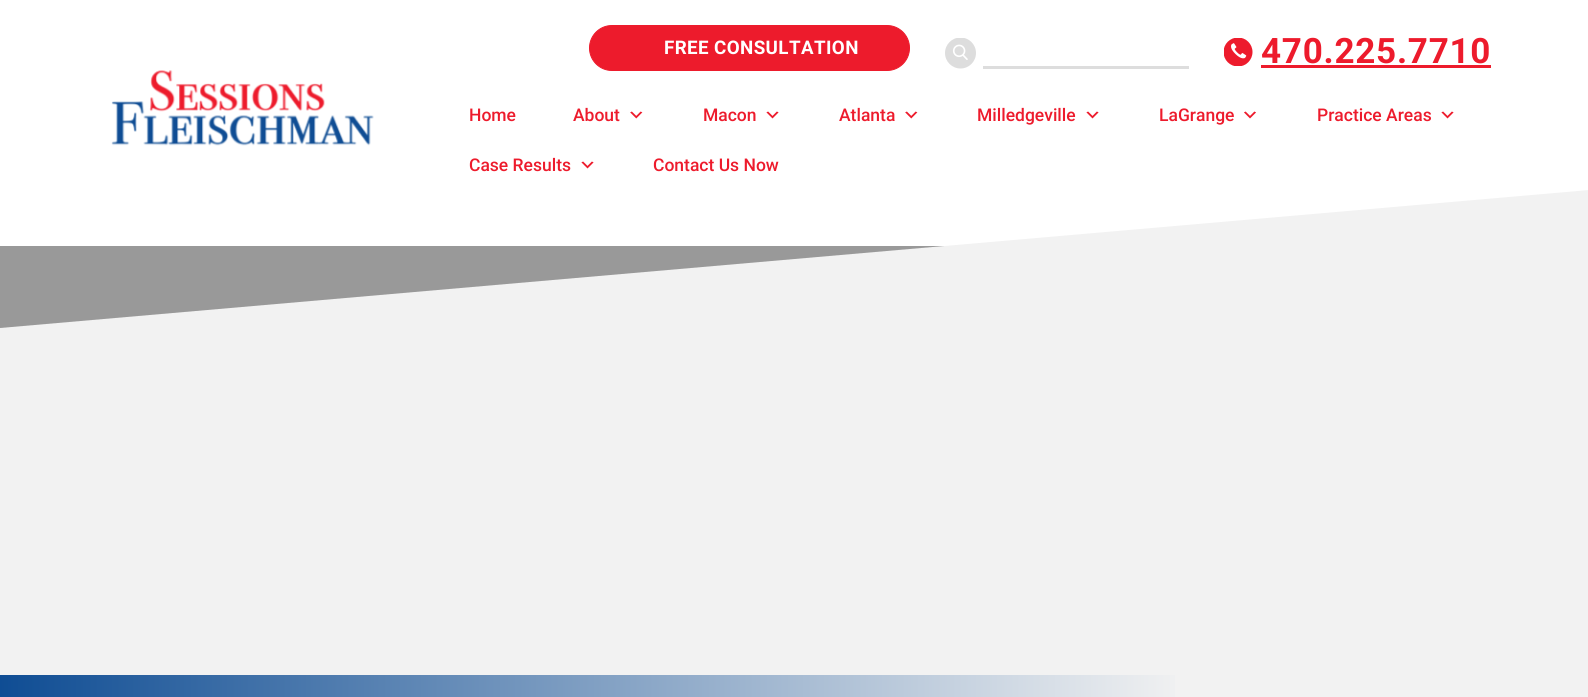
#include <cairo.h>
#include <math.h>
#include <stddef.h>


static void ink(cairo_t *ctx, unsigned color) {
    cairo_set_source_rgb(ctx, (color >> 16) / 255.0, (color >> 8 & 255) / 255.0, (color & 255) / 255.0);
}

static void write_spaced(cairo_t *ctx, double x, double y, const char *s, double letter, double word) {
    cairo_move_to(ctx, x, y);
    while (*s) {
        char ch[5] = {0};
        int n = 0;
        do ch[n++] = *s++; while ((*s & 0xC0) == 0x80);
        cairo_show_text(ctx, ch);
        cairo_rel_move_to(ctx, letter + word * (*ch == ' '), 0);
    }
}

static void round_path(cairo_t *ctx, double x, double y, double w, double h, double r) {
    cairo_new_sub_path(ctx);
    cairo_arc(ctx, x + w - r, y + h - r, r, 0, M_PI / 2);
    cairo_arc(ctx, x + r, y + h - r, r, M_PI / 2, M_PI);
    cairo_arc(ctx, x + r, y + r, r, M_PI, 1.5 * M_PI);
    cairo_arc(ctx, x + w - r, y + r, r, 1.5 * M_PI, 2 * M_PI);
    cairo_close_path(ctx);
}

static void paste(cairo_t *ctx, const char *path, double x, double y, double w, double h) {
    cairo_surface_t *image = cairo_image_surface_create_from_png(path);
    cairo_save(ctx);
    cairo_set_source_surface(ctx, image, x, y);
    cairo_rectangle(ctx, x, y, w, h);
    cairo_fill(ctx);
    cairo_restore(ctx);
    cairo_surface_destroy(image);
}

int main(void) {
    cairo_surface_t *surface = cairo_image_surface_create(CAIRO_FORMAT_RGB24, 1588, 697);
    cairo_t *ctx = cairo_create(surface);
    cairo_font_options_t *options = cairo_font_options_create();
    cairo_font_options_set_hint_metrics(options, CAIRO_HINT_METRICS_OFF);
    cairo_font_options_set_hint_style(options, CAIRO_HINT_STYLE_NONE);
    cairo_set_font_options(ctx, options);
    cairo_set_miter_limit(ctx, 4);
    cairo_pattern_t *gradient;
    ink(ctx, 0xFFFFFF);
    cairo_paint(ctx);
    paste(ctx, "media/1.png", 111, 70, 263, 76);
    ink(ctx, 0xED1B2C);
    round_path(ctx, 589.5, 25.5, 320, 45, 22.5);
    cairo_fill_preserve(ctx);
    cairo_set_line_width(ctx, 1);
    cairo_stroke(ctx);
    cairo_select_font_face(ctx, "Roboto", CAIRO_FONT_SLANT_NORMAL, CAIRO_FONT_WEIGHT_BOLD);
    cairo_set_font_size(ctx, 18.75);
    ink(ctx, 0xFFFFFF);
    write_spaced(ctx, 664, 54, "FREE CONSULTATION", 0.4, 0);
    paste(ctx, "media/2.png", 945, 38, 31, 31);
    ink(ctx, 0xDDDDDD);
    cairo_rectangle(ctx, 983, 66, 206, 3);
    cairo_fill(ctx);
    paste(ctx, "media/3.png", 1224, 38, 29, 28);
    cairo_set_font_size(ctx, 35);
    ink(ctx, 0xED1B2C);
    write_spaced(ctx, 1261, 63, "470.225.7710", 0.75, 0);
    cairo_rectangle(ctx, 1261, 65, 230, 3);
    cairo_fill(ctx);
    cairo_select_font_face(ctx, "Roboto Medium", CAIRO_FONT_SLANT_NORMAL, CAIRO_FONT_WEIGHT_NORMAL);
    cairo_set_font_size(ctx, 17.5);
    cairo_move_to(ctx, 469, 121);
    cairo_show_text(ctx, "Home");
    cairo_move_to(ctx, 573, 121);
    cairo_show_text(ctx, "About");
    paste(ctx, "media/4.png", 630, 111, 13, 8);
    cairo_move_to(ctx, 703, 121);
    cairo_show_text(ctx, "Macon");
    paste(ctx, "media/5.png", 766, 111, 13, 8);
    cairo_move_to(ctx, 839, 121);
    cairo_show_text(ctx, "Atlanta");
    paste(ctx, "media/4.png", 905, 111, 13, 8);
    cairo_move_to(ctx, 977, 121);
    cairo_show_text(ctx, "Milledgeville");
    paste(ctx, "media/5.png", 1086, 111, 13, 8);
    cairo_move_to(ctx, 1159, 121);
    cairo_show_text(ctx, "LaGrange");
    paste(ctx, "media/6.png", 1244, 111, 12, 8);
    cairo_move_to(ctx, 1317, 121);
    cairo_show_text(ctx, "Practice Areas");
    paste(ctx, "media/5.png", 1441, 111, 13, 8);
    cairo_move_to(ctx, 469, 171);
    cairo_show_text(ctx, "Case Results");
    paste(ctx, "media/5.png", 581, 161, 13, 8);
    cairo_move_to(ctx, 653, 171);
    cairo_show_text(ctx, "Contact Us Now");
    ink(ctx, 0x999999);
    cairo_rectangle(ctx, 0, 246, 945, 82);
    cairo_fill(ctx);
    ink(ctx, 0xF2F2F2);
    cairo_new_path(ctx);
    cairo_move_to(ctx, 0, 328);
    cairo_line_to(ctx, 0, 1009);
    cairo_line_to(ctx, 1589, 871);
    cairo_line_to(ctx, 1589, 190);
    cairo_close_path(ctx);
    cairo_fill(ctx);
    gradient = cairo_pattern_create_linear(0, 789, 1188, 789);
    cairo_pattern_add_color_stop_rgba(gradient, 0, 0.059, 0.302, 0.58, 1);
    cairo_pattern_add_color_stop_rgba(gradient, 1, 0.949, 0.949, 0.949, 1);
    cairo_set_source(ctx, gradient);
    cairo_pattern_destroy(gradient);
    cairo_rectangle(ctx, 0, 675, 1175, 22);
    cairo_fill(ctx);
    cairo_surface_write_to_png(surface, "image.png");
    cairo_font_options_destroy(options);
    cairo_destroy(ctx);
    cairo_surface_destroy(surface);
    return 0;
}
